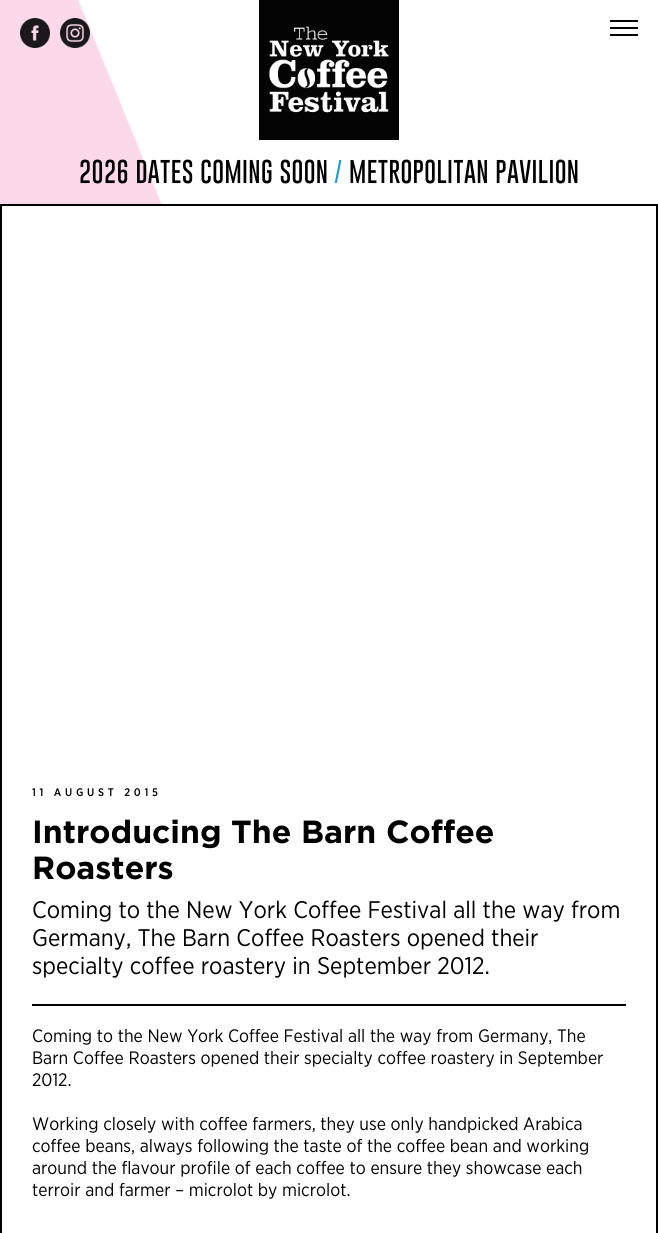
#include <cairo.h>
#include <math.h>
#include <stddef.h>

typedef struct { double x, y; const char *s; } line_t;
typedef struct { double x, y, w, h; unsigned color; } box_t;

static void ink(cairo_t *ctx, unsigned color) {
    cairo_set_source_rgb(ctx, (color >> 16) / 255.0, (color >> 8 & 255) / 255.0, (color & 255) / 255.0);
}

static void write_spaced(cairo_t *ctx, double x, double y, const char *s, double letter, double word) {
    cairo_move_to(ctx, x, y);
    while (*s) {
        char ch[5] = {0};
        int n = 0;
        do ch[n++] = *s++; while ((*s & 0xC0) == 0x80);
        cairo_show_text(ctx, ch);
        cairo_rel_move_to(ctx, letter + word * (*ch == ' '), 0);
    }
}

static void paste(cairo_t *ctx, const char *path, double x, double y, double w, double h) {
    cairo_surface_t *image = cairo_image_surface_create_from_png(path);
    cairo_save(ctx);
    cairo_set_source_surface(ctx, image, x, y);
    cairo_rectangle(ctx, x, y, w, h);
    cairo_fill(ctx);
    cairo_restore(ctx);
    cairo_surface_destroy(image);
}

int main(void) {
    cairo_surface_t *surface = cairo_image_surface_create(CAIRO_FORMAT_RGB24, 658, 1233);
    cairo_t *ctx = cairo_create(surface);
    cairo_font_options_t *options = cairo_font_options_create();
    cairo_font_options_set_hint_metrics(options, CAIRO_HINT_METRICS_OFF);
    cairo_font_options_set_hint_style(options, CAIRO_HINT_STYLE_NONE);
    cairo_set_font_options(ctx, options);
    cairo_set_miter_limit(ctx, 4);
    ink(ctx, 0xFFFFFF);
    cairo_paint(ctx);
    paste(ctx, "media/1.png", 0, 0, 583, 204);
    paste(ctx, "media/2.png", 20, 18, 30, 30);
    paste(ctx, "media/3.png", 60, 18, 30, 30);
    paste(ctx, "media/4.png", 259, 0, 140, 140);
    {
        static const box_t items[] = {
            {610, 20, 28, 2, 0x000000},
            {610, 27, 28, 2, 0x000000},
            {610, 34, 28, 2, 0x000000},
        };
        for (size_t i = 0; i < sizeof items / sizeof *items; i++) {
            ink(ctx, items[i].color);
            cairo_rectangle(ctx, items[i].x, items[i].y, items[i].w, items[i].h);
            cairo_fill(ctx);
        }
    }
    cairo_select_font_face(ctx, "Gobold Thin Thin", CAIRO_FONT_SLANT_NORMAL, CAIRO_FONT_WEIGHT_NORMAL);
    cairo_set_font_size(ctx, 24);
    write_spaced(ctx, 79, 183, "2026 DATES COMING SOON", 0.4, 0);
    ink(ctx, 0x159DD9);
    write_spaced(ctx, 334, 183, "/", 0.4, 0);
    ink(ctx, 0x000000);
    write_spaced(ctx, 349, 183, "METROPOLITAN PAVILION", 0.4, 0);
    cairo_rectangle(ctx, 1, 205, 656, 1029);
    cairo_stroke(ctx);
    cairo_select_font_face(ctx, "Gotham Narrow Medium", CAIRO_FONT_SLANT_NORMAL, CAIRO_FONT_WEIGHT_NORMAL);
    cairo_set_font_size(ctx, 11);
    write_spaced(ctx, 32, 796, "11 AUGUST 2015", 3.75, 0);
    cairo_select_font_face(ctx, "Gotham", CAIRO_FONT_SLANT_NORMAL, CAIRO_FONT_WEIGHT_BOLD);
    cairo_set_font_size(ctx, 32);
    cairo_move_to(ctx, 32, 843);
    cairo_show_text(ctx, "Introducing The Barn Coffee");
    cairo_move_to(ctx, 32, 879);
    cairo_show_text(ctx, "Roasters");
    cairo_select_font_face(ctx, "Gotham Narrow", CAIRO_FONT_SLANT_NORMAL, CAIRO_FONT_WEIGHT_NORMAL);
    cairo_set_font_size(ctx, 24);
    {
        static const line_t items[] = {
            {32, 918, "Coming to the New York Coffee Festival all the way from"},
            {32, 946, "Germany, The Barn Coffee Roasters opened their"},
            {32, 974, "specialty coffee roastery in September 2012."},
        };
        for (size_t i = 0; i < sizeof items / sizeof *items; i++) {
            cairo_move_to(ctx, items[i].x, items[i].y);
            cairo_show_text(ctx, items[i].s);
        }
    }
    cairo_rectangle(ctx, 32, 1004, 594, 2);
    cairo_fill(ctx);
    cairo_set_font_size(ctx, 18);
    {
        static const line_t items[] = {
            {32, 1042, "Coming to the New York Coffee Festival all the way from Germany, The"},
            {32, 1064, "Barn Coffee Roasters opened their specialty coffee roastery in September"},
            {32, 1086, "2012."},
            {32, 1130, "Working closely with coffee farmers, they use only handpicked Arabica"},
            {32, 1152, "coffee beans, always following the taste of the coffee bean and working"},
            {32, 1174, "around the flavour profile of each coffee to ensure they showcase each"},
            {32, 1196, "terroir and farmer – microlot by microlot."},
        };
        for (size_t i = 0; i < sizeof items / sizeof *items; i++) {
            cairo_move_to(ctx, items[i].x, items[i].y);
            cairo_show_text(ctx, items[i].s);
        }
    }
    cairo_surface_write_to_png(surface, "image.png");
    cairo_font_options_destroy(options);
    cairo_destroy(ctx);
    cairo_surface_destroy(surface);
    return 0;
}
